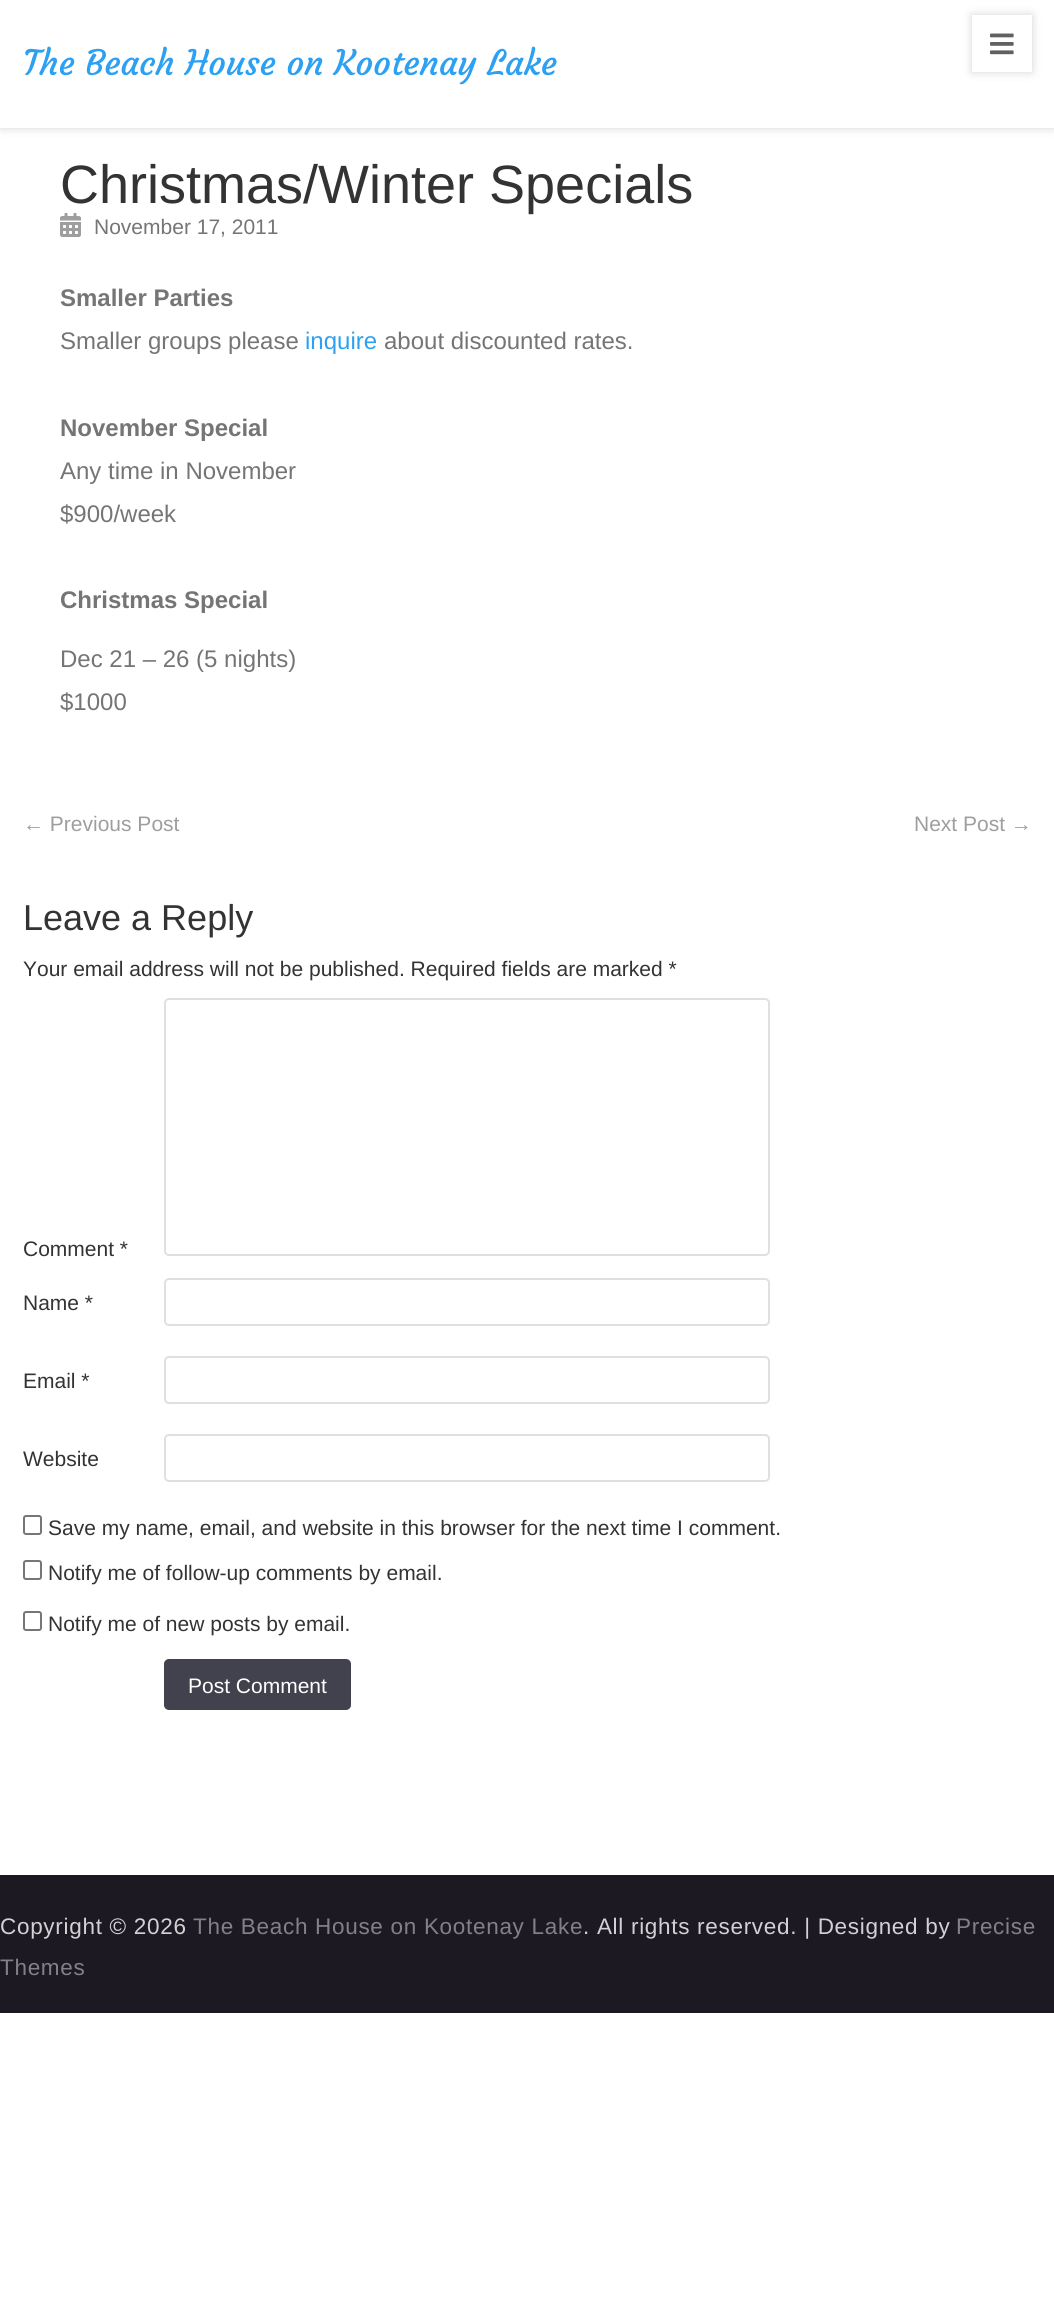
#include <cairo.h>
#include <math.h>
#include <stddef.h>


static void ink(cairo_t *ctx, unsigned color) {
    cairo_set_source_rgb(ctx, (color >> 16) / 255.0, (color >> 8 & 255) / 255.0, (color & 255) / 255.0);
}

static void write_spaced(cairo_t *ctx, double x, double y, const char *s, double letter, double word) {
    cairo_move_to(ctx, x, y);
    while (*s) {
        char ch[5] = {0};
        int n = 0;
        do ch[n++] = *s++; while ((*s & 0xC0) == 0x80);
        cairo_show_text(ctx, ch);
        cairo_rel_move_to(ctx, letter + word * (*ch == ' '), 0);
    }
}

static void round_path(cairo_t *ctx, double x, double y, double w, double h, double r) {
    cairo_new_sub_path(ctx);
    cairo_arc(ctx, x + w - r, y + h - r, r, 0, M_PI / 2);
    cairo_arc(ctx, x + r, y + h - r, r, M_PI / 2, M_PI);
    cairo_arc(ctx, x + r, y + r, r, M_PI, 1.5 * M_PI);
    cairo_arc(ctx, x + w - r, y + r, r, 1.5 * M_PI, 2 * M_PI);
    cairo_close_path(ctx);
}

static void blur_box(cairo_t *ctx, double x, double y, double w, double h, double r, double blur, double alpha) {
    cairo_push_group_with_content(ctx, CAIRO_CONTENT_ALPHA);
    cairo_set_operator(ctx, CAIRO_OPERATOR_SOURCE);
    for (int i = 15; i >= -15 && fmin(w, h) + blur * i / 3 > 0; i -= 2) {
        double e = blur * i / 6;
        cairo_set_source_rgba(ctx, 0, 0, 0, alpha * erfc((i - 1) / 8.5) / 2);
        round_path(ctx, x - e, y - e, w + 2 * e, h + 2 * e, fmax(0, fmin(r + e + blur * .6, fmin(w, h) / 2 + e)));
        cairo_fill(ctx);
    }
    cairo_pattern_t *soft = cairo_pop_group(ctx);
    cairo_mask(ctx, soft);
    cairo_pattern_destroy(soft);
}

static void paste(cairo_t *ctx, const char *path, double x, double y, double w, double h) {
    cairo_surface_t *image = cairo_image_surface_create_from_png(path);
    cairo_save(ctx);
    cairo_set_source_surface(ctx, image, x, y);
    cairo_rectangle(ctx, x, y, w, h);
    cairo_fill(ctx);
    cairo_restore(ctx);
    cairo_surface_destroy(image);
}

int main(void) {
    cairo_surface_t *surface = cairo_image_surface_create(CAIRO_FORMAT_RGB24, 1054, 2297);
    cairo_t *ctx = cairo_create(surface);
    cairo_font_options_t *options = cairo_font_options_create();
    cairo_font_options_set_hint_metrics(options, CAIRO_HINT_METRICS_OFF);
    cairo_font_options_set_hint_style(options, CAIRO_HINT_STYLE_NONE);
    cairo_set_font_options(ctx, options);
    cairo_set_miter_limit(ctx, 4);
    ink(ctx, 0xFFFFFF);
    cairo_paint(ctx);
    ink(ctx, 0x212121);
    blur_box(ctx, 0, 0, 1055, 128, 0, 4.5, 0.2);
    ink(ctx, 0xFFFFFF);
    cairo_rectangle(ctx, 0, 0, 1054, 128);
    cairo_fill(ctx);
    cairo_select_font_face(ctx, "Courgette", CAIRO_FONT_SLANT_NORMAL, CAIRO_FONT_WEIGHT_NORMAL);
    cairo_set_font_size(ctx, 34.5);
    ink(ctx, 0x2CA0F2);
    cairo_move_to(ctx, 23, 75);
    cairo_show_text(ctx, "The Beach House on Kootenay Lake");
    cairo_save(ctx);
    cairo_set_fill_rule(ctx, CAIRO_FILL_RULE_EVEN_ODD);
    cairo_new_path(ctx);
    cairo_move_to(ctx, 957, 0);
    cairo_line_to(ctx, 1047, 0);
    cairo_line_to(ctx, 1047, 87);
    cairo_line_to(ctx, 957, 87);
    cairo_close_path(ctx);
    cairo_move_to(ctx, 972, 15);
    cairo_line_to(ctx, 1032, 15);
    cairo_line_to(ctx, 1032, 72);
    cairo_line_to(ctx, 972, 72);
    cairo_close_path(ctx);
    cairo_clip(ctx);
    ink(ctx, 0x212121);
    blur_box(ctx, 972, 15, 60, 57, 0, 4.5, 0.2);
    cairo_restore(ctx);
    paste(ctx, "media/1.png", 990, 33, 24, 22);
    cairo_select_font_face(ctx, "Liberation Sans", CAIRO_FONT_SLANT_NORMAL, CAIRO_FONT_WEIGHT_NORMAL);
    cairo_set_font_size(ctx, 54);
    ink(ctx, 0x333333);
    cairo_move_to(ctx, 60, 203);
    cairo_show_text(ctx, "Christmas/Winter Specials");
    paste(ctx, "media/2.png", 60, 213, 21, 24);
    cairo_set_font_size(ctx, 21);
    ink(ctx, 0x757575);
    cairo_move_to(ctx, 94, 234);
    cairo_show_text(ctx, "November 17, 2011");
    cairo_select_font_face(ctx, "Liberation Sans", CAIRO_FONT_SLANT_NORMAL, CAIRO_FONT_WEIGHT_BOLD);
    cairo_set_font_size(ctx, 24);
    cairo_move_to(ctx, 60, 306);
    cairo_show_text(ctx, "Smaller Parties");
    cairo_select_font_face(ctx, "Liberation Sans", CAIRO_FONT_SLANT_NORMAL, CAIRO_FONT_WEIGHT_NORMAL);
    cairo_move_to(ctx, 60, 349);
    cairo_show_text(ctx, "Smaller groups please");
    ink(ctx, 0x2CA0F2);
    cairo_move_to(ctx, 305, 349);
    cairo_show_text(ctx, "inquire");
    ink(ctx, 0x757575);
    cairo_move_to(ctx, 384, 349);
    cairo_show_text(ctx, "about discounted rates.");
    cairo_select_font_face(ctx, "Liberation Sans", CAIRO_FONT_SLANT_NORMAL, CAIRO_FONT_WEIGHT_BOLD);
    cairo_move_to(ctx, 60, 436);
    cairo_show_text(ctx, "November Special");
    cairo_select_font_face(ctx, "Liberation Sans", CAIRO_FONT_SLANT_NORMAL, CAIRO_FONT_WEIGHT_NORMAL);
    cairo_move_to(ctx, 60, 479);
    cairo_show_text(ctx, "Any time in November");
    cairo_move_to(ctx, 60, 522);
    cairo_show_text(ctx, "$900/week");
    cairo_select_font_face(ctx, "Liberation Sans", CAIRO_FONT_SLANT_NORMAL, CAIRO_FONT_WEIGHT_BOLD);
    cairo_move_to(ctx, 60, 608);
    cairo_show_text(ctx, "Christmas Special");
    cairo_select_font_face(ctx, "Liberation Sans", CAIRO_FONT_SLANT_NORMAL, CAIRO_FONT_WEIGHT_NORMAL);
    cairo_move_to(ctx, 60, 667);
    cairo_show_text(ctx, "Dec 21 – 26 (5 nights)");
    cairo_move_to(ctx, 60, 710);
    cairo_show_text(ctx, "$1000");
    cairo_set_font_size(ctx, 21);
    ink(ctx, 0x9E9E9E);
    cairo_move_to(ctx, 23, 831);
    cairo_show_text(ctx, "← Previous Post");
    cairo_move_to(ctx, 914, 831);
    cairo_show_text(ctx, "Next Post →");
    cairo_set_font_size(ctx, 36);
    ink(ctx, 0x333333);
    cairo_move_to(ctx, 23, 930);
    cairo_show_text(ctx, "Leave a Reply");
    cairo_set_font_size(ctx, 21);
    cairo_move_to(ctx, 23, 976);
    cairo_show_text(ctx, "Your email address will not be published. Required fields are marked *");
    cairo_move_to(ctx, 23, 1256);
    cairo_show_text(ctx, "Comment *");
    round_path(ctx, 165, 999, 604, 256, 4);
    ink(ctx, 0xE0E0E0);
    cairo_stroke(ctx);
    ink(ctx, 0x333333);
    cairo_move_to(ctx, 23, 1310);
    cairo_show_text(ctx, "Name *");
    round_path(ctx, 165, 1279, 604, 46, 4);
    ink(ctx, 0xE0E0E0);
    cairo_stroke(ctx);
    ink(ctx, 0x333333);
    cairo_move_to(ctx, 23, 1388);
    cairo_show_text(ctx, "Email *");
    round_path(ctx, 165, 1357, 604, 46, 4);
    ink(ctx, 0xE0E0E0);
    cairo_stroke(ctx);
    ink(ctx, 0x333333);
    cairo_move_to(ctx, 23, 1466);
    cairo_show_text(ctx, "Website");
    round_path(ctx, 165, 1435, 604, 46, 4);
    ink(ctx, 0xE0E0E0);
    cairo_stroke(ctx);
    round_path(ctx, 24, 1516, 17, 18, 2);
    ink(ctx, 0x767676);
    cairo_stroke(ctx);
    ink(ctx, 0x333333);
    cairo_move_to(ctx, 48, 1535);
    cairo_show_text(ctx, "Save my name, email, and website in this browser for the next time I comment.");
    round_path(ctx, 24, 1561, 17, 18, 2);
    ink(ctx, 0x767676);
    cairo_stroke(ctx);
    ink(ctx, 0x333333);
    cairo_move_to(ctx, 48, 1580);
    cairo_show_text(ctx, "Notify me of follow-up comments by email.");
    round_path(ctx, 24, 1612, 17, 18, 2);
    ink(ctx, 0x767676);
    cairo_stroke(ctx);
    ink(ctx, 0x333333);
    cairo_move_to(ctx, 48, 1631);
    cairo_show_text(ctx, "Notify me of new posts by email.");
    ink(ctx, 0x42414E);
    round_path(ctx, 164, 1659, 187, 51, 5);
    cairo_fill(ctx);
    ink(ctx, 0xFFFFFF);
    cairo_move_to(ctx, 188, 1693);
    cairo_show_text(ctx, "Post Comment");
    ink(ctx, 0x1C1923);
    cairo_rectangle(ctx, 0, 1875, 1054, 138);
    cairo_fill(ctx);
    cairo_set_font_size(ctx, 22.5);
    ink(ctx, 0xD2D1D3);
    write_spaced(ctx, 0, 1934, "Copyright © 2026", 0.7, 0);
    ink(ctx, 0x828186);
    write_spaced(ctx, 193, 1934, "The Beach House on Kootenay Lake", 0.7, 0);
    ink(ctx, 0xD2D1D3);
    write_spaced(ctx, 583, 1934, ". All rights reserved. | Designed by", 0.7, 0);
    ink(ctx, 0x828186);
    write_spaced(ctx, 956, 1934, "Precise", 0.7, 0);
    write_spaced(ctx, 0, 1975, "Themes", 0.7, 0);
    cairo_surface_write_to_png(surface, "image.png");
    cairo_font_options_destroy(options);
    cairo_destroy(ctx);
    cairo_surface_destroy(surface);
    return 0;
}
